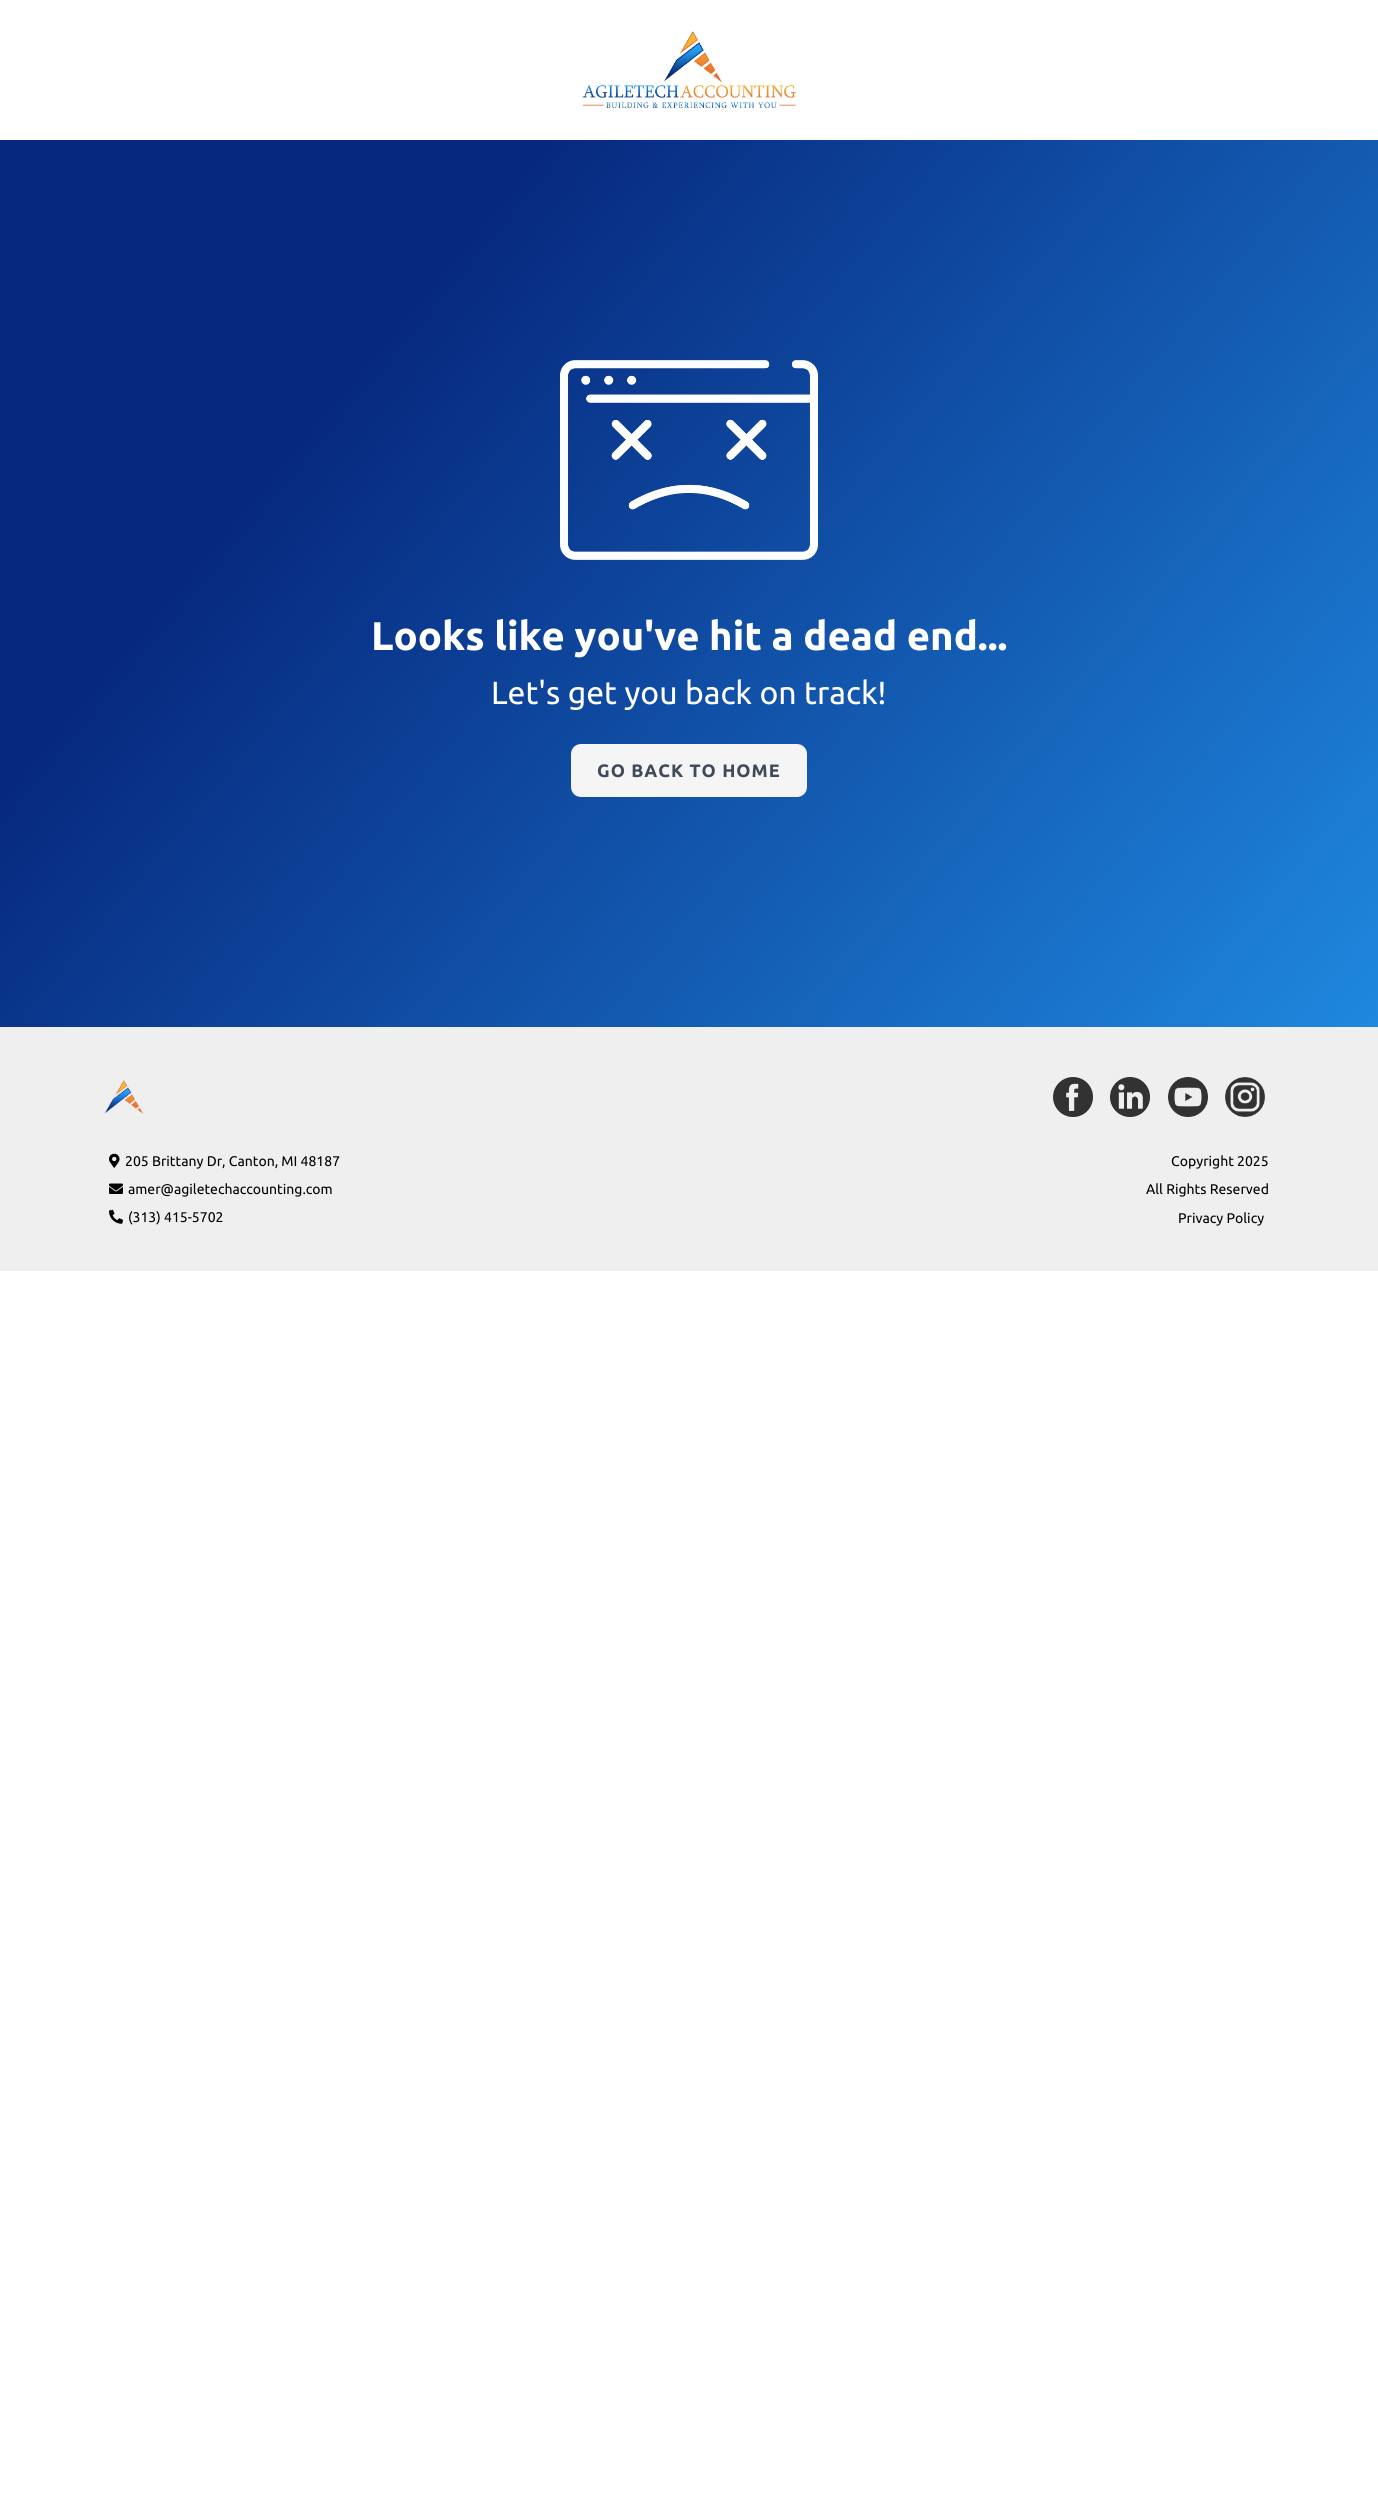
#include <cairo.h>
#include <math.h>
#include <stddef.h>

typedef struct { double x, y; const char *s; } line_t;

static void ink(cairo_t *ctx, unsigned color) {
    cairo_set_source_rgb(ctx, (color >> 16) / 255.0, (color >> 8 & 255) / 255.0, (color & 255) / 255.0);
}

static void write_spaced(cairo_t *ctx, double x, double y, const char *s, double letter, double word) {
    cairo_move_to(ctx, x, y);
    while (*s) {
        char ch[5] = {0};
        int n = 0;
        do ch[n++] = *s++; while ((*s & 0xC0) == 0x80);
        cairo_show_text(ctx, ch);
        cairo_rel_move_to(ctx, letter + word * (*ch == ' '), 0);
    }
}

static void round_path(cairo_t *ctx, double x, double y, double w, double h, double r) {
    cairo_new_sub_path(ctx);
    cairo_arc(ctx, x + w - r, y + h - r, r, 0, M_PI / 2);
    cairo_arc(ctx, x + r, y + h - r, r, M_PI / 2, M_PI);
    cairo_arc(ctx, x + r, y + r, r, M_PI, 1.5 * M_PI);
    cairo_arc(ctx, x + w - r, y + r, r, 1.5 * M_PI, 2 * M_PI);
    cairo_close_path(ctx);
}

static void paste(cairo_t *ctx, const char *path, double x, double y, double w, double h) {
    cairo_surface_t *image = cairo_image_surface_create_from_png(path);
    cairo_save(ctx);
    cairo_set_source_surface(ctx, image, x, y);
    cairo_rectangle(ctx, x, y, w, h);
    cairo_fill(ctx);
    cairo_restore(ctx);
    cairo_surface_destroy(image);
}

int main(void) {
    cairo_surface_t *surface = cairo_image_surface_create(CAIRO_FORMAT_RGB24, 1378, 2493);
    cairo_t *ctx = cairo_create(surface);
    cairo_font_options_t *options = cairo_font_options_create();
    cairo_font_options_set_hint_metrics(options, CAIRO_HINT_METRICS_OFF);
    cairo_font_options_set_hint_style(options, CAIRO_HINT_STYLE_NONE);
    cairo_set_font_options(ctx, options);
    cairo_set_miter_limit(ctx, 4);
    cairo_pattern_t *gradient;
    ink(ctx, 0xFFFFFF);
    cairo_paint(ctx);
    paste(ctx, "media/1.png", 582, 30, 214, 79);
    gradient = cairo_pattern_create_linear(66, 61, 1312, 1106);
    cairo_pattern_add_color_stop_rgba(gradient, 0.25, 0.024, 0.157, 0.494, 1);
    cairo_pattern_add_color_stop_rgba(gradient, 1, 0.122, 0.533, 0.875, 1);
    cairo_set_source(ctx, gradient);
    cairo_pattern_destroy(gradient);
    cairo_rectangle(ctx, 0, 140, 1378, 887);
    cairo_fill(ctx);
    paste(ctx, "media/2.png", 560, 360, 258, 200);
    cairo_select_font_face(ctx, "Ubuntu", CAIRO_FONT_SLANT_NORMAL, CAIRO_FONT_WEIGHT_BOLD);
    cairo_set_font_size(ctx, 40);
    ink(ctx, 0xFFFFFF);
    cairo_move_to(ctx, 371, 650);
    cairo_show_text(ctx, "Looks like you've hit a dead end...");
    cairo_select_font_face(ctx, "Ubuntu", CAIRO_FONT_SLANT_NORMAL, CAIRO_FONT_WEIGHT_NORMAL);
    cairo_set_font_size(ctx, 32);
    cairo_move_to(ctx, 491, 704);
    cairo_show_text(ctx, "Let's get you back on track!");
    ink(ctx, 0xF5F5F5);
    round_path(ctx, 571, 744, 236, 53, 10);
    cairo_fill(ctx);
    cairo_select_font_face(ctx, "Ubuntu", CAIRO_FONT_SLANT_NORMAL, CAIRO_FONT_WEIGHT_BOLD);
    cairo_set_font_size(ctx, 18);
    ink(ctx, 0x3E4A59);
    write_spaced(ctx, 597, 777, "GO BACK TO HOME", 1, 0);
    ink(ctx, 0xEFEFEF);
    cairo_rectangle(ctx, 0, 1027, 1378, 244);
    cairo_fill(ctx);
    paste(ctx, "media/3.png", 104, 1080, 40, 34);
    paste(ctx, "media/4.png", 1053, 1077, 40, 40);
    paste(ctx, "media/5.png", 1110, 1077, 40, 40);
    paste(ctx, "media/6.png", 1168, 1077, 40, 40);
    paste(ctx, "media/7.png", 1225, 1077, 40, 40);
    paste(ctx, "media/8.png", 109, 1153, 11, 15);
    cairo_select_font_face(ctx, "Ubuntu", CAIRO_FONT_SLANT_NORMAL, CAIRO_FONT_WEIGHT_NORMAL);
    cairo_set_font_size(ctx, 14);
    ink(ctx, 0x000000);
    cairo_move_to(ctx, 125, 1166);
    cairo_show_text(ctx, "205 Brittany Dr, Canton, MI 48187");
    paste(ctx, "media/9.png", 109, 1183, 14, 11);
    cairo_move_to(ctx, 128, 1194);
    cairo_show_text(ctx, "amer@agiletechaccounting.com");
    paste(ctx, "media/10.png", 109, 1209, 14, 15);
    {
        static const line_t items[] = {
            {128, 1222, "(313) 415-5702"},
            {1171, 1166, "Copyright 2025"},
            {1146, 1194, "All Rights Reserved"},
            {1178, 1223, "Privacy Policy"},
        };
        for (size_t i = 0; i < sizeof items / sizeof *items; i++) {
            cairo_move_to(ctx, items[i].x, items[i].y);
            cairo_show_text(ctx, items[i].s);
        }
    }
    cairo_surface_write_to_png(surface, "image.png");
    cairo_font_options_destroy(options);
    cairo_destroy(ctx);
    cairo_surface_destroy(surface);
    return 0;
}
